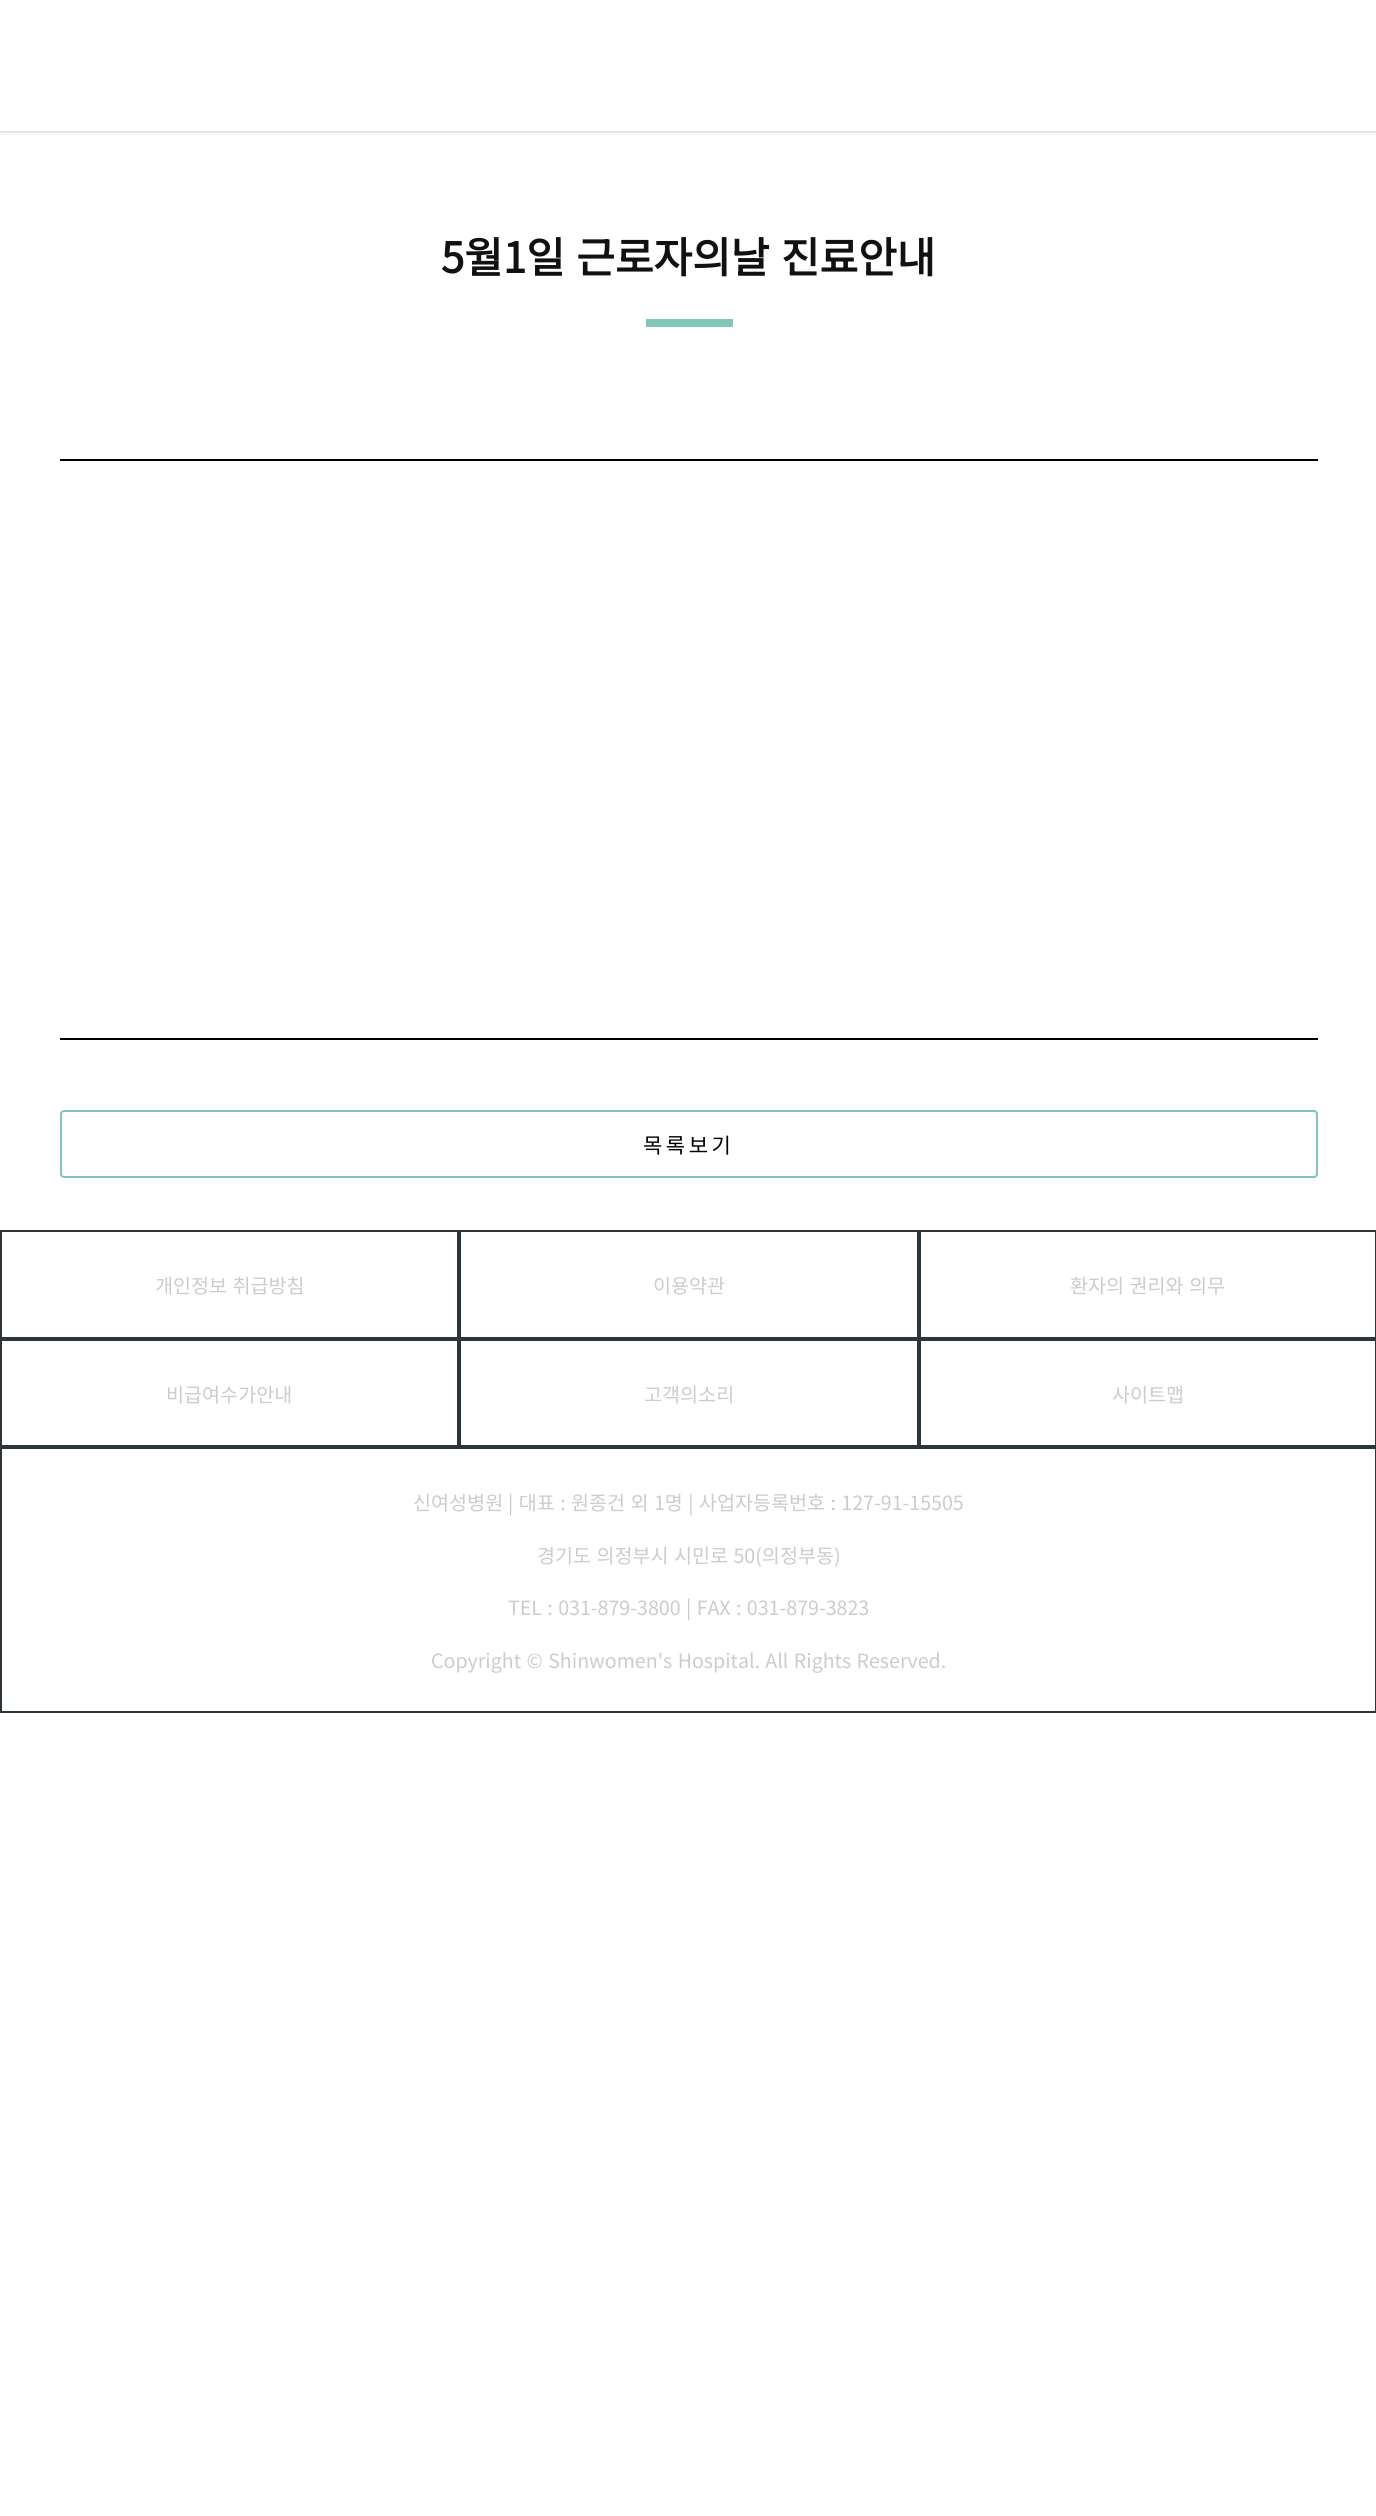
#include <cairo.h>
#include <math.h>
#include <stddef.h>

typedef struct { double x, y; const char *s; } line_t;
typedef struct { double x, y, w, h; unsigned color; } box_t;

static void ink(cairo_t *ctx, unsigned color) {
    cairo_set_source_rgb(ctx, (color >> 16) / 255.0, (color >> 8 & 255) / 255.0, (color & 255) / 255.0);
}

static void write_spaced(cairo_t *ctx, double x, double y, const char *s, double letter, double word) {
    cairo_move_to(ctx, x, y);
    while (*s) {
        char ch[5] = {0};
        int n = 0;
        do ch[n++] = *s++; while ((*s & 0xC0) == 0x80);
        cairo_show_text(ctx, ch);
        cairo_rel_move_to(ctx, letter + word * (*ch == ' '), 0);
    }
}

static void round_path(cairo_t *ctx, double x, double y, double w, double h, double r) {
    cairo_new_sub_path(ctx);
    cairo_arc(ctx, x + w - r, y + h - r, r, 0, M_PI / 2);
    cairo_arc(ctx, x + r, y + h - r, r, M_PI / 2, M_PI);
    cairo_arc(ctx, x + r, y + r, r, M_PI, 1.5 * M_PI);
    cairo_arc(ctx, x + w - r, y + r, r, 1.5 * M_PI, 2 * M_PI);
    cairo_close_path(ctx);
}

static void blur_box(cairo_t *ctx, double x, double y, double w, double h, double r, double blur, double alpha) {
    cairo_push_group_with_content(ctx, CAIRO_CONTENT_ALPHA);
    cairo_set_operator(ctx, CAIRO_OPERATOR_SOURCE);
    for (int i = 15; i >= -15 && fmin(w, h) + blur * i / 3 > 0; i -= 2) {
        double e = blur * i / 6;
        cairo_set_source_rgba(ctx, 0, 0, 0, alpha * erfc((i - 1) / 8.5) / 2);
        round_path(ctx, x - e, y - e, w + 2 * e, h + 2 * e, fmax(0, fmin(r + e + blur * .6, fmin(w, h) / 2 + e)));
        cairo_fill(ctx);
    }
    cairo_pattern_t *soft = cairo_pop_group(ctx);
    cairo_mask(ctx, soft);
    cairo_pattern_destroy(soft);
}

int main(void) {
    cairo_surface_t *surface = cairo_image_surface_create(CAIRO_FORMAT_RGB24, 1376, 2516);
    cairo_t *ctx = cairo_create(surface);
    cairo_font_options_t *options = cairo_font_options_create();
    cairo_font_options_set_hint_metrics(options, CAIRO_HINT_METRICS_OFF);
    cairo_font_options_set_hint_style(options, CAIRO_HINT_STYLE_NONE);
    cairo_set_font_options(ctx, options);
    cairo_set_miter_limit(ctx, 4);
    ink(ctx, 0xFFFFFF);
    cairo_paint(ctx);
    cairo_save(ctx);
    cairo_rectangle(ctx, 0, 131, 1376, 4);
    cairo_clip(ctx);
    ink(ctx, 0x000000);
    blur_box(ctx, 0, 0, 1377, 131, 0, 2.5, 0.3);
    cairo_restore(ctx);
    cairo_select_font_face(ctx, "Noto Sans KR", CAIRO_FONT_SLANT_NORMAL, CAIRO_FONT_WEIGHT_BOLD);
    cairo_set_font_size(ctx, 42);
    ink(ctx, 0x111111);
    write_spaced(ctx, 441, 273, "5월1일 근로자의날 진료안내", 0, 2);
    {
        static const box_t items[] = {
            {646, 319, 87, 8, 0x81C7B7},
            {60, 459, 1258, 2, 0x000000},
            {60, 1038, 1258, 2, 0x000000},
        };
        for (size_t i = 0; i < sizeof items / sizeof *items; i++) {
            ink(ctx, items[i].color);
            cairo_rectangle(ctx, items[i].x, items[i].y, items[i].w, items[i].h);
            cairo_fill(ctx);
        }
    }
    round_path(ctx, 61, 1111, 1256, 66, 3);
    ink(ctx, 0x84C2BF);
    cairo_stroke(ctx);
    cairo_select_font_face(ctx, "Noto Sans KR Thin", CAIRO_FONT_SLANT_NORMAL, CAIRO_FONT_WEIGHT_NORMAL);
    cairo_set_font_size(ctx, 21);
    ink(ctx, 0x000000);
    write_spaced(ctx, 643, 1153, "목록보기", 3.5, 0);
    cairo_rectangle(ctx, 1, 1231, 457, 107);
    ink(ctx, 0x2C363A);
    cairo_stroke(ctx);
    cairo_set_font_size(ctx, 19.6);
    ink(ctx, 0xCCCCCC);
    write_spaced(ctx, 155, 1293, "개인정보 취급방침", 0, 1);
    cairo_rectangle(ctx, 460, 1231, 458, 107);
    ink(ctx, 0x2C363A);
    cairo_stroke(ctx);
    ink(ctx, 0xCCCCCC);
    cairo_move_to(ctx, 653, 1293);
    cairo_show_text(ctx, "이용약관");
    cairo_rectangle(ctx, 920, 1231, 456, 107);
    ink(ctx, 0x2C363A);
    cairo_stroke(ctx);
    ink(ctx, 0xCCCCCC);
    write_spaced(ctx, 1070, 1293, "환자의 권리와 의무", 0, 1);
    cairo_rectangle(ctx, 1, 1340, 457, 106);
    ink(ctx, 0x2C363A);
    cairo_stroke(ctx);
    ink(ctx, 0xCCCCCC);
    cairo_move_to(ctx, 166, 1402);
    cairo_show_text(ctx, "비급여수가안내");
    cairo_rectangle(ctx, 460, 1340, 458, 106);
    ink(ctx, 0x2C363A);
    cairo_stroke(ctx);
    ink(ctx, 0xCCCCCC);
    cairo_move_to(ctx, 644, 1402);
    cairo_show_text(ctx, "고객의소리");
    cairo_rectangle(ctx, 920, 1340, 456, 106);
    ink(ctx, 0x2C363A);
    cairo_stroke(ctx);
    ink(ctx, 0xCCCCCC);
    cairo_move_to(ctx, 1112, 1402);
    cairo_show_text(ctx, "사이트맵");
    cairo_rectangle(ctx, 1, 1448, 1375, 264);
    ink(ctx, 0x2C363A);
    cairo_stroke(ctx);
    ink(ctx, 0xCCCCCC);
    cairo_move_to(ctx, 413, 1510);
    cairo_show_text(ctx, "신여성병원");
    {
        static const line_t items[] = {
            {508, 1510, "| 대표 : 원종건 외 1명 | 사업자등록번호 : 127-91-15505"},
            {537, 1563, "경기도 의정부시 시민로 50(의정부동)"},
            {508, 1615, "TEL : 031-879-3800 | FAX : 031-879-3823"},
            {431, 1668, "Copyright © Shinwomen's Hospital. All Rights Reserved."},
        };
        for (size_t i = 0; i < sizeof items / sizeof *items; i++) {
            write_spaced(ctx, items[i].x, items[i].y, items[i].s, 0, 1);
        }
    }
    cairo_surface_write_to_png(surface, "image.png");
    cairo_font_options_destroy(options);
    cairo_destroy(ctx);
    cairo_surface_destroy(surface);
    return 0;
}
